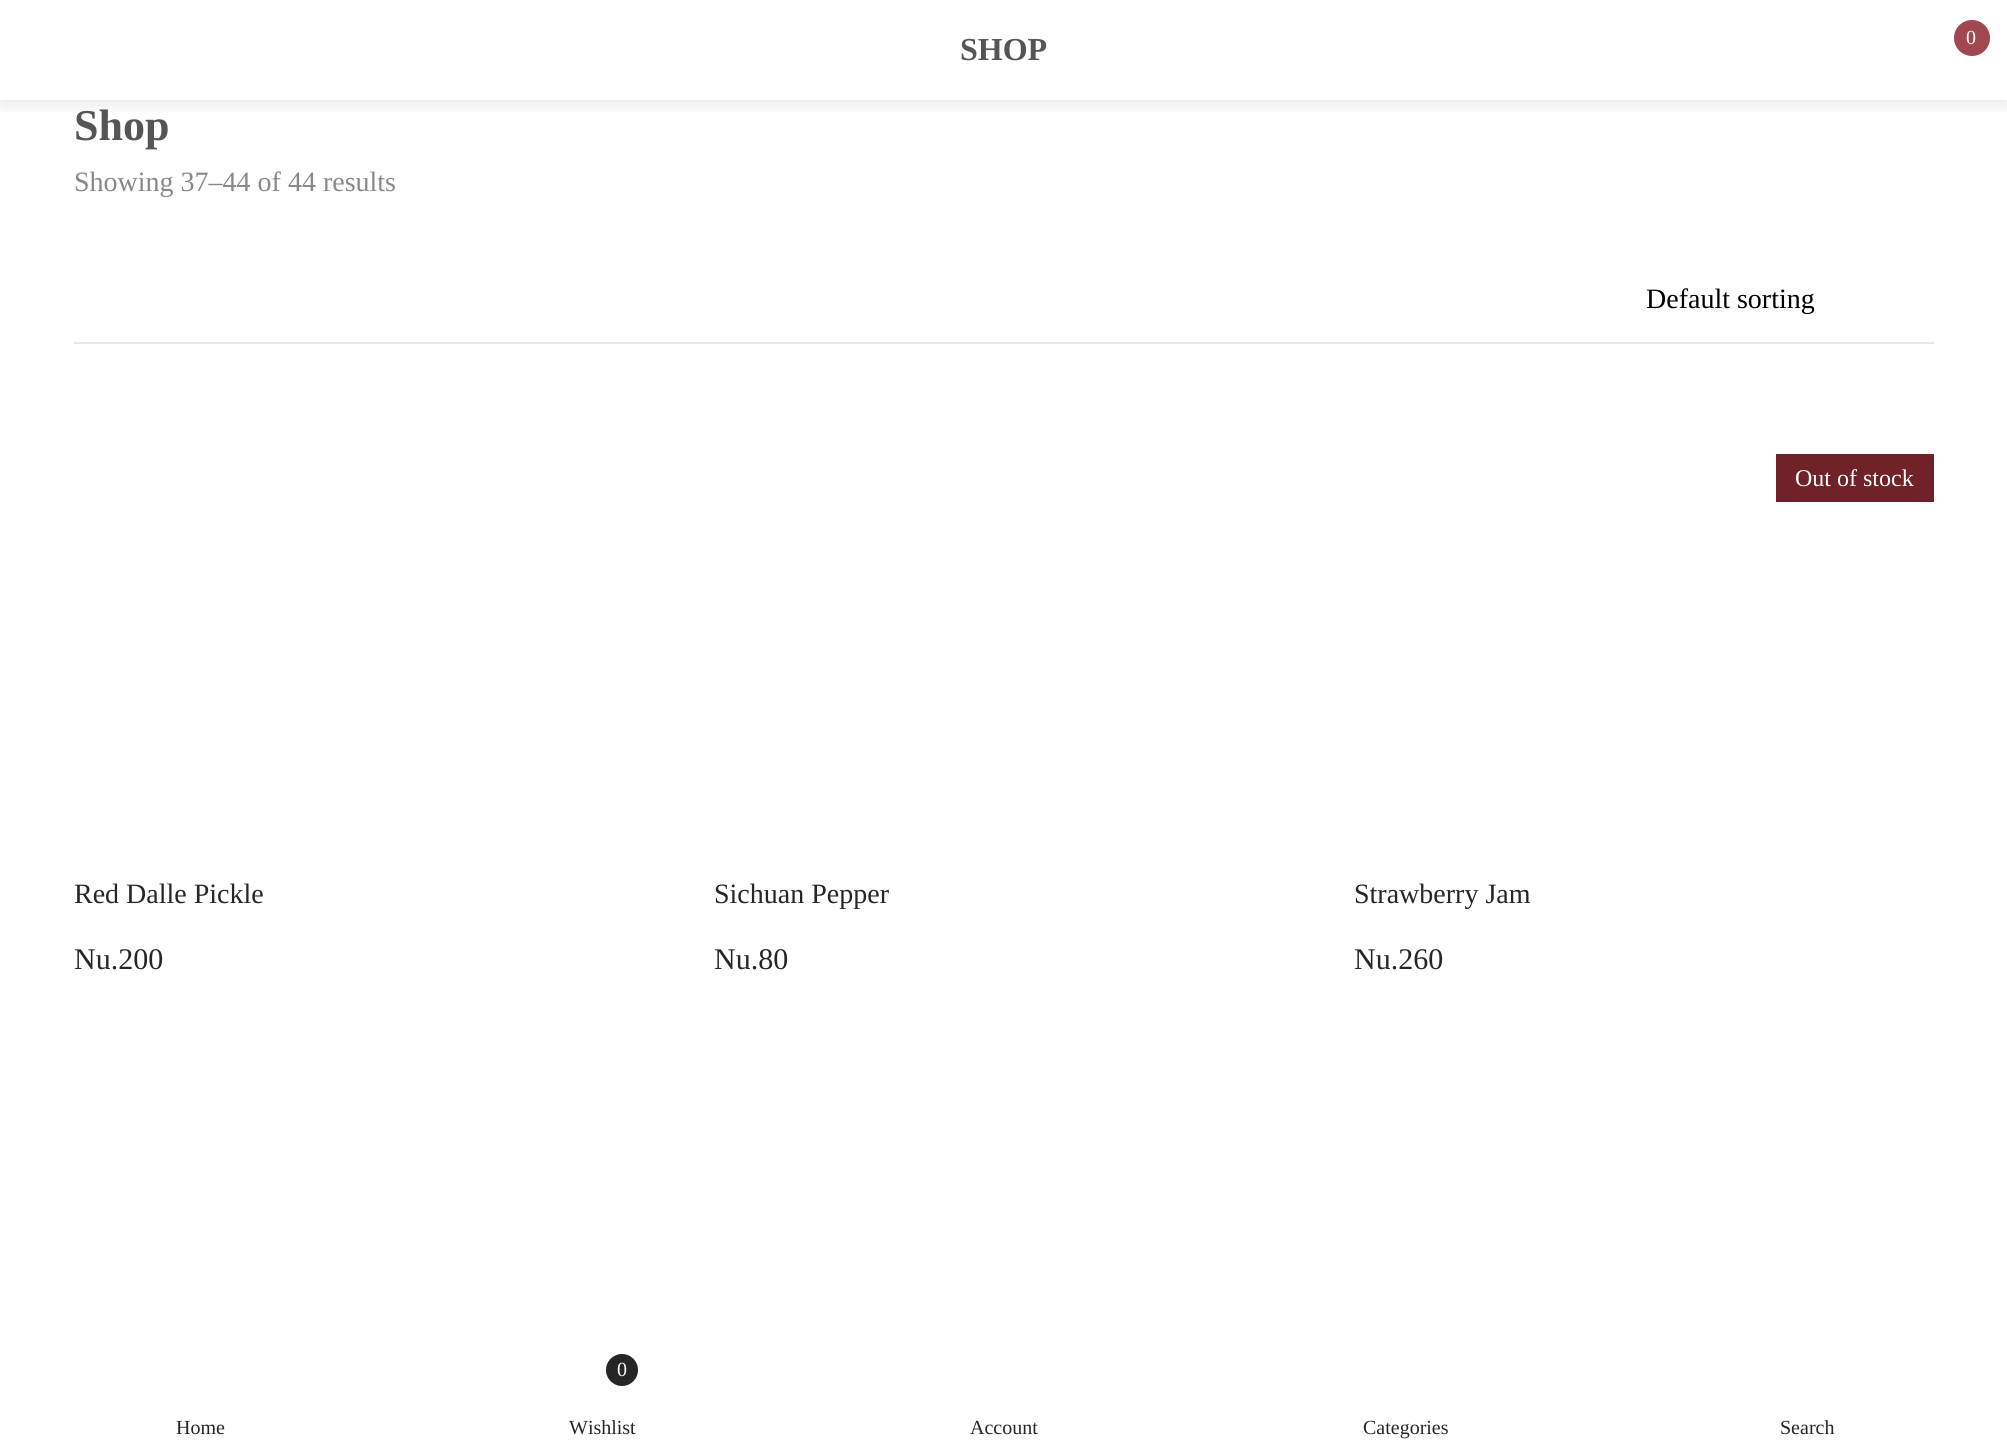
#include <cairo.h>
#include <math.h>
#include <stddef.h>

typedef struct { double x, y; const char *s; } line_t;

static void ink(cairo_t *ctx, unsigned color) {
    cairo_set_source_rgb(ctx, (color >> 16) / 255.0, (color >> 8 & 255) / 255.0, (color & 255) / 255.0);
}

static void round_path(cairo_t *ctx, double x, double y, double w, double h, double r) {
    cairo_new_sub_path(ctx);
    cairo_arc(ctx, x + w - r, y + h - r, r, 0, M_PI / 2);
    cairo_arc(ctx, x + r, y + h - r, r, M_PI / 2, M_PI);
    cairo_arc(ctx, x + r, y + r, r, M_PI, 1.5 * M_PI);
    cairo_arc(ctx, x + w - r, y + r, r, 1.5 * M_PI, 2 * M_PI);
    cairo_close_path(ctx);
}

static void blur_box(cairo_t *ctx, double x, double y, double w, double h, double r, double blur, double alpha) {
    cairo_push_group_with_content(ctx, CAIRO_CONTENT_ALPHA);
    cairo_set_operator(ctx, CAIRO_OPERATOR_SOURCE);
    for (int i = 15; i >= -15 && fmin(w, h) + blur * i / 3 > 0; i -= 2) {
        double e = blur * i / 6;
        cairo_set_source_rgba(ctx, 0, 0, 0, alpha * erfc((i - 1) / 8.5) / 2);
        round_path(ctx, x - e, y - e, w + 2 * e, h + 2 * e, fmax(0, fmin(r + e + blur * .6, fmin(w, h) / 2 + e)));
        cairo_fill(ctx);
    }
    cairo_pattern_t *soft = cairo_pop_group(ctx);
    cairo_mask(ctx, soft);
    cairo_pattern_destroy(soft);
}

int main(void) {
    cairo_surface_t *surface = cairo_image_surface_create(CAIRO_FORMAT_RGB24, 2007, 1453);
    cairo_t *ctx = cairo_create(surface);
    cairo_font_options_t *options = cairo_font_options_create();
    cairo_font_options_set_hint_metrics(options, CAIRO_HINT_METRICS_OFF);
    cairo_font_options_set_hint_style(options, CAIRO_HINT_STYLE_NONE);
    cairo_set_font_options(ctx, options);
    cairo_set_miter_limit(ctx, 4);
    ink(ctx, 0xFFFFFF);
    cairo_paint(ctx);
    cairo_save(ctx);
    cairo_rectangle(ctx, 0, 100, 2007, 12);
    cairo_clip(ctx);
    ink(ctx, 0x000000);
    blur_box(ctx, 0, 4, 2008, 100, 0, 10, 0.1);
    cairo_restore(ctx);
    cairo_select_font_face(ctx, "Liberation Serif", CAIRO_FONT_SLANT_NORMAL, CAIRO_FONT_WEIGHT_BOLD);
    cairo_set_font_size(ctx, 32);
    ink(ctx, 0x555555);
    cairo_move_to(ctx, 960, 60);
    cairo_show_text(ctx, "SHOP");
    ink(ctx, 0xA14751);
    cairo_new_path(ctx);
    cairo_arc(ctx, 1972, 38, 18, 0, 2 * M_PI);
    cairo_fill(ctx);
    cairo_select_font_face(ctx, "Liberation Serif", CAIRO_FONT_SLANT_NORMAL, CAIRO_FONT_WEIGHT_NORMAL);
    cairo_set_font_size(ctx, 20);
    ink(ctx, 0xFFFFFF);
    cairo_move_to(ctx, 1966, 44);
    cairo_show_text(ctx, "0");
    cairo_select_font_face(ctx, "Liberation Serif", CAIRO_FONT_SLANT_NORMAL, CAIRO_FONT_WEIGHT_BOLD);
    cairo_set_font_size(ctx, 44);
    ink(ctx, 0x555555);
    cairo_move_to(ctx, 74, 140);
    cairo_show_text(ctx, "Shop");
    ink(ctx, 0xE8E8E8);
    cairo_rectangle(ctx, 74, 342, 1860, 2);
    cairo_fill(ctx);
    cairo_select_font_face(ctx, "Liberation Serif", CAIRO_FONT_SLANT_NORMAL, CAIRO_FONT_WEIGHT_NORMAL);
    cairo_set_font_size(ctx, 28);
    ink(ctx, 0x888888);
    cairo_move_to(ctx, 74, 191);
    cairo_show_text(ctx, "Showing 37–44 of 44 results");
    ink(ctx, 0x000000);
    cairo_move_to(ctx, 1646, 308);
    cairo_show_text(ctx, "Default sorting");
    ink(ctx, 0x262626);
    cairo_move_to(ctx, 74, 903);
    cairo_show_text(ctx, "Red Dalle Pickle");
    cairo_set_font_size(ctx, 30);
    cairo_move_to(ctx, 74, 969);
    cairo_show_text(ctx, "Nu.200");
    cairo_set_font_size(ctx, 28);
    cairo_move_to(ctx, 714, 903);
    cairo_show_text(ctx, "Sichuan Pepper");
    cairo_set_font_size(ctx, 30);
    cairo_move_to(ctx, 714, 969);
    cairo_show_text(ctx, "Nu.80");
    ink(ctx, 0x712128);
    cairo_rectangle(ctx, 1776, 454, 158, 48);
    cairo_fill(ctx);
    cairo_set_font_size(ctx, 24);
    ink(ctx, 0xFFFFFF);
    cairo_move_to(ctx, 1795, 486);
    cairo_show_text(ctx, "Out of stock");
    cairo_set_font_size(ctx, 28);
    ink(ctx, 0x262626);
    cairo_move_to(ctx, 1354, 903);
    cairo_show_text(ctx, "Strawberry Jam");
    cairo_set_font_size(ctx, 30);
    cairo_move_to(ctx, 1354, 969);
    cairo_show_text(ctx, "Nu.260");
    cairo_set_font_size(ctx, 20);
    cairo_move_to(ctx, 176, 1434);
    cairo_show_text(ctx, "Home");
    cairo_new_path(ctx);
    cairo_arc(ctx, 622, 1370, 16, 0, 2 * M_PI);
    cairo_fill(ctx);
    ink(ctx, 0xFFFFFF);
    cairo_move_to(ctx, 617, 1376);
    cairo_show_text(ctx, "0");
    ink(ctx, 0x262626);
    {
        static const line_t items[] = {
            {569, 1434, "Wishlist"},
            {970, 1434, "Account"},
            {1363, 1434, "Categories"},
            {1780, 1434, "Search"},
        };
        for (size_t i = 0; i < sizeof items / sizeof *items; i++) {
            cairo_move_to(ctx, items[i].x, items[i].y);
            cairo_show_text(ctx, items[i].s);
        }
    }
    cairo_surface_write_to_png(surface, "image.png");
    cairo_font_options_destroy(options);
    cairo_destroy(ctx);
    cairo_surface_destroy(surface);
    return 0;
}
